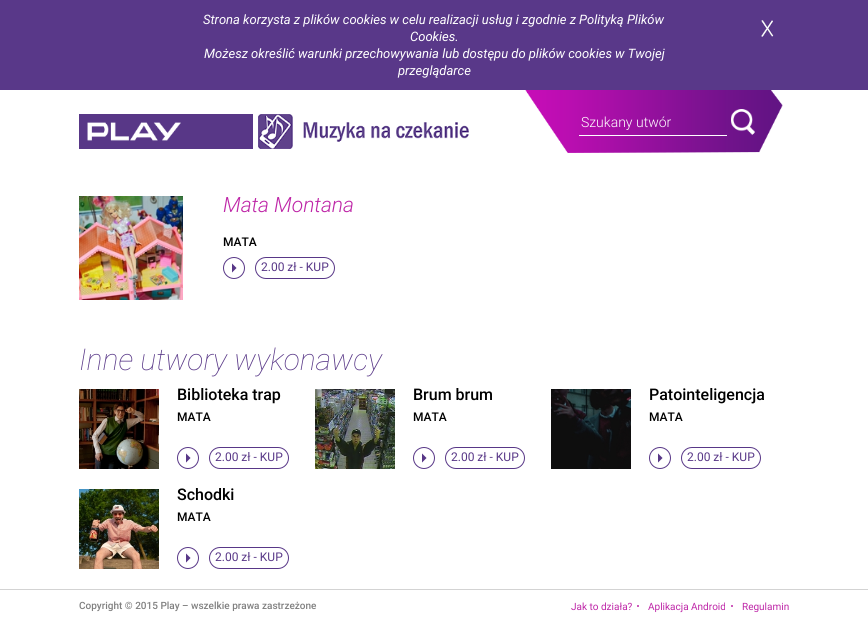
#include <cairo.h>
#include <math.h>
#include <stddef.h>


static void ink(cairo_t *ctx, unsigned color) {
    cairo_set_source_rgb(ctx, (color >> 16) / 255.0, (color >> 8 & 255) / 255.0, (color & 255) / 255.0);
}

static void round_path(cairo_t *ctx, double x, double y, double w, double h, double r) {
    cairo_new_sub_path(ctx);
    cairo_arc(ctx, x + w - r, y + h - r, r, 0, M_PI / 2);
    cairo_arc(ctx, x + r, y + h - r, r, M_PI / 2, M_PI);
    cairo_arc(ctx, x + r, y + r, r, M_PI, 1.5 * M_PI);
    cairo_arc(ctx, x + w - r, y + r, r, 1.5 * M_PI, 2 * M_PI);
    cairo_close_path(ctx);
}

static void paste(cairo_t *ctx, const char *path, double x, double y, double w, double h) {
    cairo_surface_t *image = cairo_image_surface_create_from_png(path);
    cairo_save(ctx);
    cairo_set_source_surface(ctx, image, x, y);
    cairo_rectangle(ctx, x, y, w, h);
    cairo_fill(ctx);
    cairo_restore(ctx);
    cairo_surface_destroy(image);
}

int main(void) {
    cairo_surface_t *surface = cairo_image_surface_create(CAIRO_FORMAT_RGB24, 868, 621);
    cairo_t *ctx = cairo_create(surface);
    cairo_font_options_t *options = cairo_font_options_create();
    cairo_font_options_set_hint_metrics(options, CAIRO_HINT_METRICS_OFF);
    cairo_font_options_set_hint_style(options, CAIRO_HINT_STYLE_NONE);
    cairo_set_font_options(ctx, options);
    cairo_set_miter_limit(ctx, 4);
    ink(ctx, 0xFFFFFF);
    cairo_paint(ctx);
    ink(ctx, 0x593889);
    cairo_rectangle(ctx, 0, 0, 868, 90);
    cairo_fill(ctx);
    cairo_select_font_face(ctx, "Roboto", CAIRO_FONT_SLANT_ITALIC, CAIRO_FONT_WEIGHT_NORMAL);
    cairo_set_font_size(ctx, 13);
    ink(ctx, 0xFFFFFF);
    cairo_move_to(ctx, 203, 24);
    cairo_show_text(ctx, "Strona korzysta z plików cookies w celu realizacji usług i zgodnie z Polityką Plików");
    cairo_move_to(ctx, 410, 41);
    cairo_show_text(ctx, "Cookies.");
    paste(ctx, "media/1.png", 761, 20, 13, 17);
    cairo_move_to(ctx, 204, 58);
    cairo_show_text(ctx, "Możesz określić warunki przechowywania lub dostępu do plików cookies w Twojej");
    cairo_move_to(ctx, 398, 75);
    cairo_show_text(ctx, "przeglądarce");
    paste(ctx, "media/2.png", 79, 114, 174, 35);
    paste(ctx, "media/3.png", 258, 114, 211, 35);
    paste(ctx, "media/4.png", 525, 90, 258, 63);
    cairo_rectangle(ctx, 579, 135, 148, 1);
    cairo_fill(ctx);
    cairo_select_font_face(ctx, "Roboto Light", CAIRO_FONT_SLANT_NORMAL, CAIRO_FONT_WEIGHT_NORMAL);
    cairo_set_font_size(ctx, 14);
    cairo_move_to(ctx, 581, 127);
    cairo_show_text(ctx, "Szukany utwór");
    paste(ctx, "media/5.png", 731, 109, 24, 26);
    paste(ctx, "media/6.png", 79, 196, 104, 104);
    cairo_select_font_face(ctx, "Roboto Light", CAIRO_FONT_SLANT_ITALIC, CAIRO_FONT_WEIGHT_NORMAL);
    cairo_set_font_size(ctx, 21);
    ink(ctx, 0xBE26A7);
    cairo_move_to(ctx, 223, 212);
    cairo_show_text(ctx, "Mata Montana");
    cairo_select_font_face(ctx, "Roboto Medium", CAIRO_FONT_SLANT_NORMAL, CAIRO_FONT_WEIGHT_NORMAL);
    cairo_set_font_size(ctx, 12);
    ink(ctx, 0x000000);
    cairo_move_to(ctx, 223, 246);
    cairo_show_text(ctx, "MATA");
    paste(ctx, "media/7.png", 232, 263, 5, 10);
    cairo_arc(ctx, 234, 268, 10.5, 0, 2 * M_PI);
    ink(ctx, 0x583787);
    cairo_set_line_width(ctx, 1);
    cairo_stroke(ctx);
    round_path(ctx, 255.5, 257.5, 79, 21, 10.5);
    cairo_stroke(ctx);
    cairo_select_font_face(ctx, "Roboto", CAIRO_FONT_SLANT_NORMAL, CAIRO_FONT_WEIGHT_NORMAL);
    cairo_move_to(ctx, 261, 271);
    cairo_show_text(ctx, "2.00 zł - KUP");
    cairo_select_font_face(ctx, "Roboto Thin", CAIRO_FONT_SLANT_ITALIC, CAIRO_FONT_WEIGHT_NORMAL);
    cairo_set_font_size(ctx, 30);
    cairo_move_to(ctx, 79, 370);
    cairo_show_text(ctx, "Inne utwory wykonawcy");
    paste(ctx, "media/8.png", 79, 389, 80, 80);
    cairo_select_font_face(ctx, "Roboto Medium", CAIRO_FONT_SLANT_NORMAL, CAIRO_FONT_WEIGHT_NORMAL);
    cairo_set_font_size(ctx, 16);
    ink(ctx, 0x000000);
    cairo_move_to(ctx, 177, 400);
    cairo_show_text(ctx, "Biblioteka trap");
    cairo_set_font_size(ctx, 12);
    cairo_move_to(ctx, 177, 421);
    cairo_show_text(ctx, "MATA");
    paste(ctx, "media/7.png", 186, 453, 5, 10);
    cairo_arc(ctx, 188, 458, 10.5, 0, 2 * M_PI);
    ink(ctx, 0x583787);
    cairo_stroke(ctx);
    round_path(ctx, 209.5, 447.5, 79, 21, 10.5);
    cairo_stroke(ctx);
    cairo_select_font_face(ctx, "Roboto", CAIRO_FONT_SLANT_NORMAL, CAIRO_FONT_WEIGHT_NORMAL);
    cairo_move_to(ctx, 215, 461);
    cairo_show_text(ctx, "2.00 zł - KUP");
    paste(ctx, "media/9.png", 315, 389, 80, 80);
    cairo_select_font_face(ctx, "Roboto Medium", CAIRO_FONT_SLANT_NORMAL, CAIRO_FONT_WEIGHT_NORMAL);
    cairo_set_font_size(ctx, 16);
    ink(ctx, 0x000000);
    cairo_move_to(ctx, 413, 400);
    cairo_show_text(ctx, "Brum brum");
    cairo_set_font_size(ctx, 12);
    cairo_move_to(ctx, 413, 421);
    cairo_show_text(ctx, "MATA");
    paste(ctx, "media/7.png", 422, 453, 5, 10);
    cairo_arc(ctx, 424, 458, 10.5, 0, 2 * M_PI);
    ink(ctx, 0x583787);
    cairo_stroke(ctx);
    round_path(ctx, 445.5, 447.5, 79, 21, 10.5);
    cairo_stroke(ctx);
    cairo_select_font_face(ctx, "Roboto", CAIRO_FONT_SLANT_NORMAL, CAIRO_FONT_WEIGHT_NORMAL);
    cairo_move_to(ctx, 451, 461);
    cairo_show_text(ctx, "2.00 zł - KUP");
    paste(ctx, "media/10.png", 551, 389, 80, 80);
    cairo_select_font_face(ctx, "Roboto Medium", CAIRO_FONT_SLANT_NORMAL, CAIRO_FONT_WEIGHT_NORMAL);
    cairo_set_font_size(ctx, 16);
    ink(ctx, 0x000000);
    cairo_move_to(ctx, 649, 400);
    cairo_show_text(ctx, "Patointeligencja");
    cairo_set_font_size(ctx, 12);
    cairo_move_to(ctx, 649, 421);
    cairo_show_text(ctx, "MATA");
    paste(ctx, "media/7.png", 658, 453, 5, 10);
    cairo_arc(ctx, 660, 458, 10.5, 0, 2 * M_PI);
    ink(ctx, 0x583787);
    cairo_stroke(ctx);
    round_path(ctx, 681.5, 447.5, 79, 21, 10.5);
    cairo_stroke(ctx);
    cairo_select_font_face(ctx, "Roboto", CAIRO_FONT_SLANT_NORMAL, CAIRO_FONT_WEIGHT_NORMAL);
    cairo_move_to(ctx, 687, 461);
    cairo_show_text(ctx, "2.00 zł - KUP");
    paste(ctx, "media/11.png", 79, 489, 80, 80);
    cairo_select_font_face(ctx, "Roboto Medium", CAIRO_FONT_SLANT_NORMAL, CAIRO_FONT_WEIGHT_NORMAL);
    cairo_set_font_size(ctx, 16);
    ink(ctx, 0x000000);
    cairo_move_to(ctx, 177, 500);
    cairo_show_text(ctx, "Schodki");
    cairo_set_font_size(ctx, 12);
    cairo_move_to(ctx, 177, 521);
    cairo_show_text(ctx, "MATA");
    paste(ctx, "media/7.png", 186, 553, 5, 10);
    cairo_arc(ctx, 188, 558, 10.5, 0, 2 * M_PI);
    ink(ctx, 0x583787);
    cairo_stroke(ctx);
    round_path(ctx, 209.5, 547.5, 79, 21, 10.5);
    cairo_stroke(ctx);
    cairo_select_font_face(ctx, "Roboto", CAIRO_FONT_SLANT_NORMAL, CAIRO_FONT_WEIGHT_NORMAL);
    cairo_move_to(ctx, 215, 561);
    cairo_show_text(ctx, "2.00 zł - KUP");
    ink(ctx, 0xD3D3D3);
    cairo_rectangle(ctx, 0, 589, 868, 1);
    cairo_fill(ctx);
    cairo_select_font_face(ctx, "Roboto Medium", CAIRO_FONT_SLANT_NORMAL, CAIRO_FONT_WEIGHT_NORMAL);
    cairo_set_font_size(ctx, 10);
    ink(ctx, 0x808080);
    cairo_move_to(ctx, 79, 609);
    cairo_show_text(ctx, "Copyright © 2015 Play – wszelkie prawa zastrzeżone");
    cairo_select_font_face(ctx, "Roboto", CAIRO_FONT_SLANT_NORMAL, CAIRO_FONT_WEIGHT_NORMAL);
    ink(ctx, 0xBE26A7);
    cairo_move_to(ctx, 571, 610);
    cairo_show_text(ctx, "Jak to działa?");
    cairo_new_path(ctx);
    cairo_arc(ctx, 638, 606, 1, 0, 2 * M_PI);
    cairo_fill(ctx);
    cairo_move_to(ctx, 648, 610);
    cairo_show_text(ctx, "Aplikacja Android");
    cairo_new_path(ctx);
    cairo_arc(ctx, 732, 606, 1, 0, 2 * M_PI);
    cairo_fill(ctx);
    cairo_move_to(ctx, 742, 610);
    cairo_show_text(ctx, "Regulamin");
    cairo_surface_write_to_png(surface, "image.png");
    cairo_font_options_destroy(options);
    cairo_destroy(ctx);
    cairo_surface_destroy(surface);
    return 0;
}
